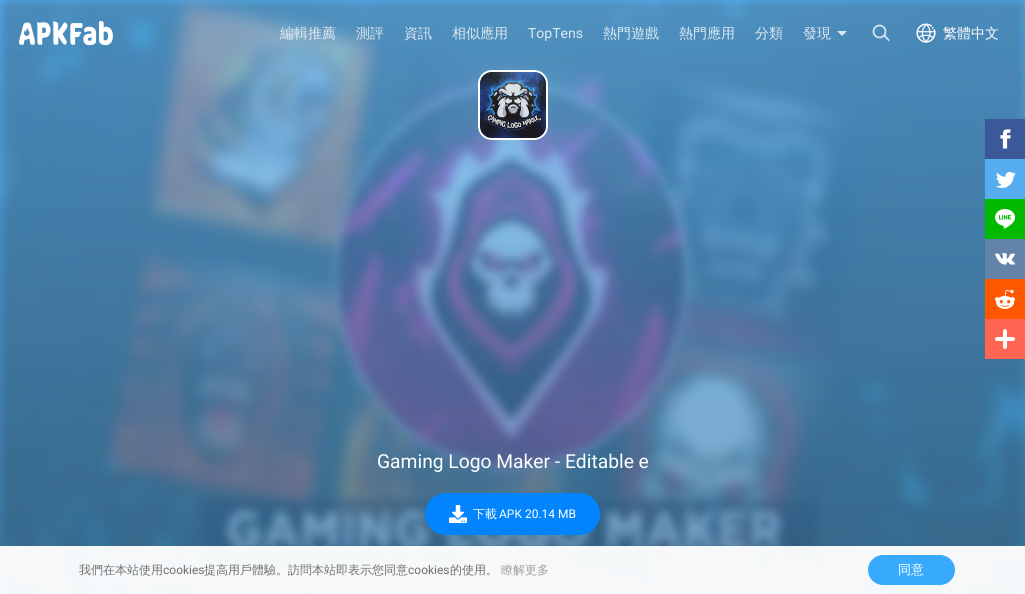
#include <cairo.h>
#include <math.h>
#include <stddef.h>

typedef struct { double x, y; const char *s; } line_t;

static void ink(cairo_t *ctx, unsigned color) {
    cairo_set_source_rgb(ctx, (color >> 16) / 255.0, (color >> 8 & 255) / 255.0, (color & 255) / 255.0);
}

static void round_path(cairo_t *ctx, double x, double y, double w, double h, double r) {
    cairo_new_sub_path(ctx);
    cairo_arc(ctx, x + w - r, y + h - r, r, 0, M_PI / 2);
    cairo_arc(ctx, x + r, y + h - r, r, M_PI / 2, M_PI);
    cairo_arc(ctx, x + r, y + r, r, M_PI, 1.5 * M_PI);
    cairo_arc(ctx, x + w - r, y + r, r, 1.5 * M_PI, 2 * M_PI);
    cairo_close_path(ctx);
}

static void paste(cairo_t *ctx, const char *path, double x, double y, double w, double h) {
    cairo_surface_t *image = cairo_image_surface_create_from_png(path);
    cairo_save(ctx);
    cairo_set_source_surface(ctx, image, x, y);
    cairo_rectangle(ctx, x, y, w, h);
    cairo_fill(ctx);
    cairo_restore(ctx);
    cairo_surface_destroy(image);
}

int main(void) {
    cairo_surface_t *surface = cairo_image_surface_create(CAIRO_FORMAT_RGB24, 1025, 594);
    cairo_t *ctx = cairo_create(surface);
    cairo_font_options_t *options = cairo_font_options_create();
    cairo_font_options_set_hint_metrics(options, CAIRO_HINT_METRICS_OFF);
    cairo_font_options_set_hint_style(options, CAIRO_HINT_STYLE_NONE);
    cairo_set_font_options(ctx, options);
    cairo_set_miter_limit(ctx, 4);
    cairo_pattern_t *gradient;
    ink(ctx, 0xFFFFFF);
    cairo_paint(ctx);
    gradient = cairo_pattern_create_linear(513, 0, 513, 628);
    cairo_pattern_add_color_stop_rgba(gradient, 0.02, 0.329, 0.678, 0.941, 1);
    cairo_pattern_add_color_stop_rgba(gradient, 0.95, 0.231, 0.475, 0.659, 1);
    cairo_set_source(ctx, gradient);
    cairo_pattern_destroy(gradient);
    cairo_rectangle(ctx, 0, 0, 1025, 594);
    cairo_fill(ctx);
    paste(ctx, "media/3.png", 0, 0, 1025, 594);
    paste(ctx, "media/1.png", 19, 21, 94, 25);
    cairo_select_font_face(ctx, "WenQuanYi Zen Hei Medium", CAIRO_FONT_SLANT_NORMAL, CAIRO_FONT_WEIGHT_NORMAL);
    cairo_set_font_size(ctx, 14);
    ink(ctx, 0xE3ECF3);
    cairo_move_to(ctx, 280, 38);
    cairo_show_text(ctx, "編輯推薦");
    ink(ctx, 0xDDE9F2);
    {
        static const line_t items[] = {
            {356, 38, "測評"},
            {404, 38, "資訊"},
            {452, 38, "相似應用"},
        };
        for (size_t i = 0; i < sizeof items / sizeof *items; i++) {
            cairo_move_to(ctx, items[i].x, items[i].y);
            cairo_show_text(ctx, items[i].s);
        }
    }
    cairo_select_font_face(ctx, "Roboto", CAIRO_FONT_SLANT_NORMAL, CAIRO_FONT_WEIGHT_NORMAL);
    cairo_move_to(ctx, 528, 38);
    cairo_show_text(ctx, "TopTens");
    cairo_select_font_face(ctx, "WenQuanYi Zen Hei Medium", CAIRO_FONT_SLANT_NORMAL, CAIRO_FONT_WEIGHT_NORMAL);
    {
        static const line_t items[] = {
            {603, 38, "熱門遊戲"},
            {679, 38, "熱門應用"},
            {755, 38, "分類"},
            {803, 38, "發現"},
        };
        for (size_t i = 0; i < sizeof items / sizeof *items; i++) {
            cairo_move_to(ctx, items[i].x, items[i].y);
            cairo_show_text(ctx, items[i].s);
        }
    }
    ink(ctx, 0xDBE8F1);
    cairo_new_path(ctx);
    cairo_move_to(ctx, 837, 31);
    cairo_line_to(ctx, 847, 31);
    cairo_line_to(ctx, 842, 36);
    cairo_close_path(ctx);
    cairo_fill(ctx);
    cairo_arc(ctx, 879.5, 31.5, 6, 0, 2 * M_PI);
    cairo_set_line_width(ctx, 1.7);
    cairo_stroke(ctx);
    cairo_new_path(ctx);
    cairo_move_to(ctx, 884.5, 35.5);
    cairo_line_to(ctx, 888.5, 40);
    cairo_set_line_cap(ctx, CAIRO_LINE_CAP_SQUARE);
    cairo_stroke(ctx);
    paste(ctx, "media/2.png", 916, 23, 20, 20);
    ink(ctx, 0xFFFFFF);
    cairo_move_to(ctx, 943, 38);
    cairo_show_text(ctx, "繁體中文");
    round_path(ctx, 479, 71, 68, 68, 13);
    cairo_set_line_width(ctx, 2);
    cairo_set_line_cap(ctx, CAIRO_LINE_CAP_BUTT);
    cairo_stroke(ctx);
    paste(ctx, "media/4.png", 480, 72, 66, 66);
    cairo_select_font_face(ctx, "Roboto", CAIRO_FONT_SLANT_NORMAL, CAIRO_FONT_WEIGHT_NORMAL);
    cairo_set_font_size(ctx, 19.25);
    cairo_move_to(ctx, 377, 468);
    cairo_show_text(ctx, "Gaming Logo Maker - Editable e");
    ink(ctx, 0x0284FE);
    round_path(ctx, 425, 493, 175, 42, 21);
    cairo_fill(ctx);
    paste(ctx, "media/5.png", 449, 505, 18, 18);
    cairo_select_font_face(ctx, "WenQuanYi Zen Hei Medium", CAIRO_FONT_SLANT_NORMAL, CAIRO_FONT_WEIGHT_NORMAL);
    cairo_set_font_size(ctx, 12);
    ink(ctx, 0xFFFFFF);
    cairo_move_to(ctx, 473, 518);
    cairo_show_text(ctx, "下載");
    cairo_select_font_face(ctx, "Roboto", CAIRO_FONT_SLANT_NORMAL, CAIRO_FONT_WEIGHT_NORMAL);
    cairo_move_to(ctx, 499, 518);
    cairo_show_text(ctx, "APK 20.14 MB");
    ink(ctx, 0x3B5998);
    cairo_rectangle(ctx, 985, 119, 40, 40);
    cairo_fill(ctx);
    paste(ctx, "media/6.png", 1000, 129, 11, 20);
    ink(ctx, 0x55ACEE);
    cairo_rectangle(ctx, 985, 159, 40, 40);
    cairo_fill(ctx);
    paste(ctx, "media/7.png", 996, 171, 20, 17);
    ink(ctx, 0x00BA00);
    cairo_rectangle(ctx, 985, 199, 40, 40);
    cairo_fill(ctx);
    paste(ctx, "media/8.png", 995, 209, 20, 20);
    ink(ctx, 0x6383A8);
    cairo_rectangle(ctx, 985, 239, 40, 40);
    cairo_fill(ctx);
    paste(ctx, "media/9.png", 995, 253, 20, 12);
    ink(ctx, 0xFF5700);
    cairo_rectangle(ctx, 985, 279, 40, 40);
    cairo_fill(ctx);
    paste(ctx, "media/10.png", 995, 289, 20, 20);
    ink(ctx, 0xFF6550);
    cairo_rectangle(ctx, 985, 319, 40, 40);
    cairo_fill(ctx);
    paste(ctx, "media/11.png", 995, 329, 20, 20);
    cairo_set_source_rgba(ctx, 1, 1, 1, 0.95);
    cairo_rectangle(ctx, 0, 546, 1025, 48);
    cairo_fill(ctx);
    cairo_select_font_face(ctx, "WenQuanYi Zen Hei Medium", CAIRO_FONT_SLANT_NORMAL, CAIRO_FONT_WEIGHT_NORMAL);
    ink(ctx, 0x6F6F6F);
    cairo_move_to(ctx, 79, 574);
    cairo_show_text(ctx, "我們在本站使用");
    cairo_select_font_face(ctx, "Roboto", CAIRO_FONT_SLANT_NORMAL, CAIRO_FONT_WEIGHT_NORMAL);
    cairo_move_to(ctx, 163, 574);
    cairo_show_text(ctx, "cookies");
    cairo_select_font_face(ctx, "WenQuanYi Zen Hei Medium", CAIRO_FONT_SLANT_NORMAL, CAIRO_FONT_WEIGHT_NORMAL);
    cairo_move_to(ctx, 204, 574);
    cairo_show_text(ctx, "提高用戶體驗。訪問本站即表示您同意");
    cairo_select_font_face(ctx, "Roboto", CAIRO_FONT_SLANT_NORMAL, CAIRO_FONT_WEIGHT_NORMAL);
    cairo_move_to(ctx, 408, 574);
    cairo_show_text(ctx, "cookies");
    cairo_select_font_face(ctx, "WenQuanYi Zen Hei Medium", CAIRO_FONT_SLANT_NORMAL, CAIRO_FONT_WEIGHT_NORMAL);
    cairo_move_to(ctx, 450, 574);
    cairo_show_text(ctx, "的使用。");
    ink(ctx, 0x9F9F9F);
    cairo_move_to(ctx, 501, 574);
    cairo_show_text(ctx, "瞭解更多");
    ink(ctx, 0x37AAFD);
    round_path(ctx, 868, 555, 87, 30, 15);
    cairo_fill(ctx);
    cairo_set_font_size(ctx, 13);
    ink(ctx, 0xFFFFFF);
    cairo_move_to(ctx, 898, 574);
    cairo_show_text(ctx, "同意");
    cairo_surface_write_to_png(surface, "image.png");
    cairo_font_options_destroy(options);
    cairo_destroy(ctx);
    cairo_surface_destroy(surface);
    return 0;
}
